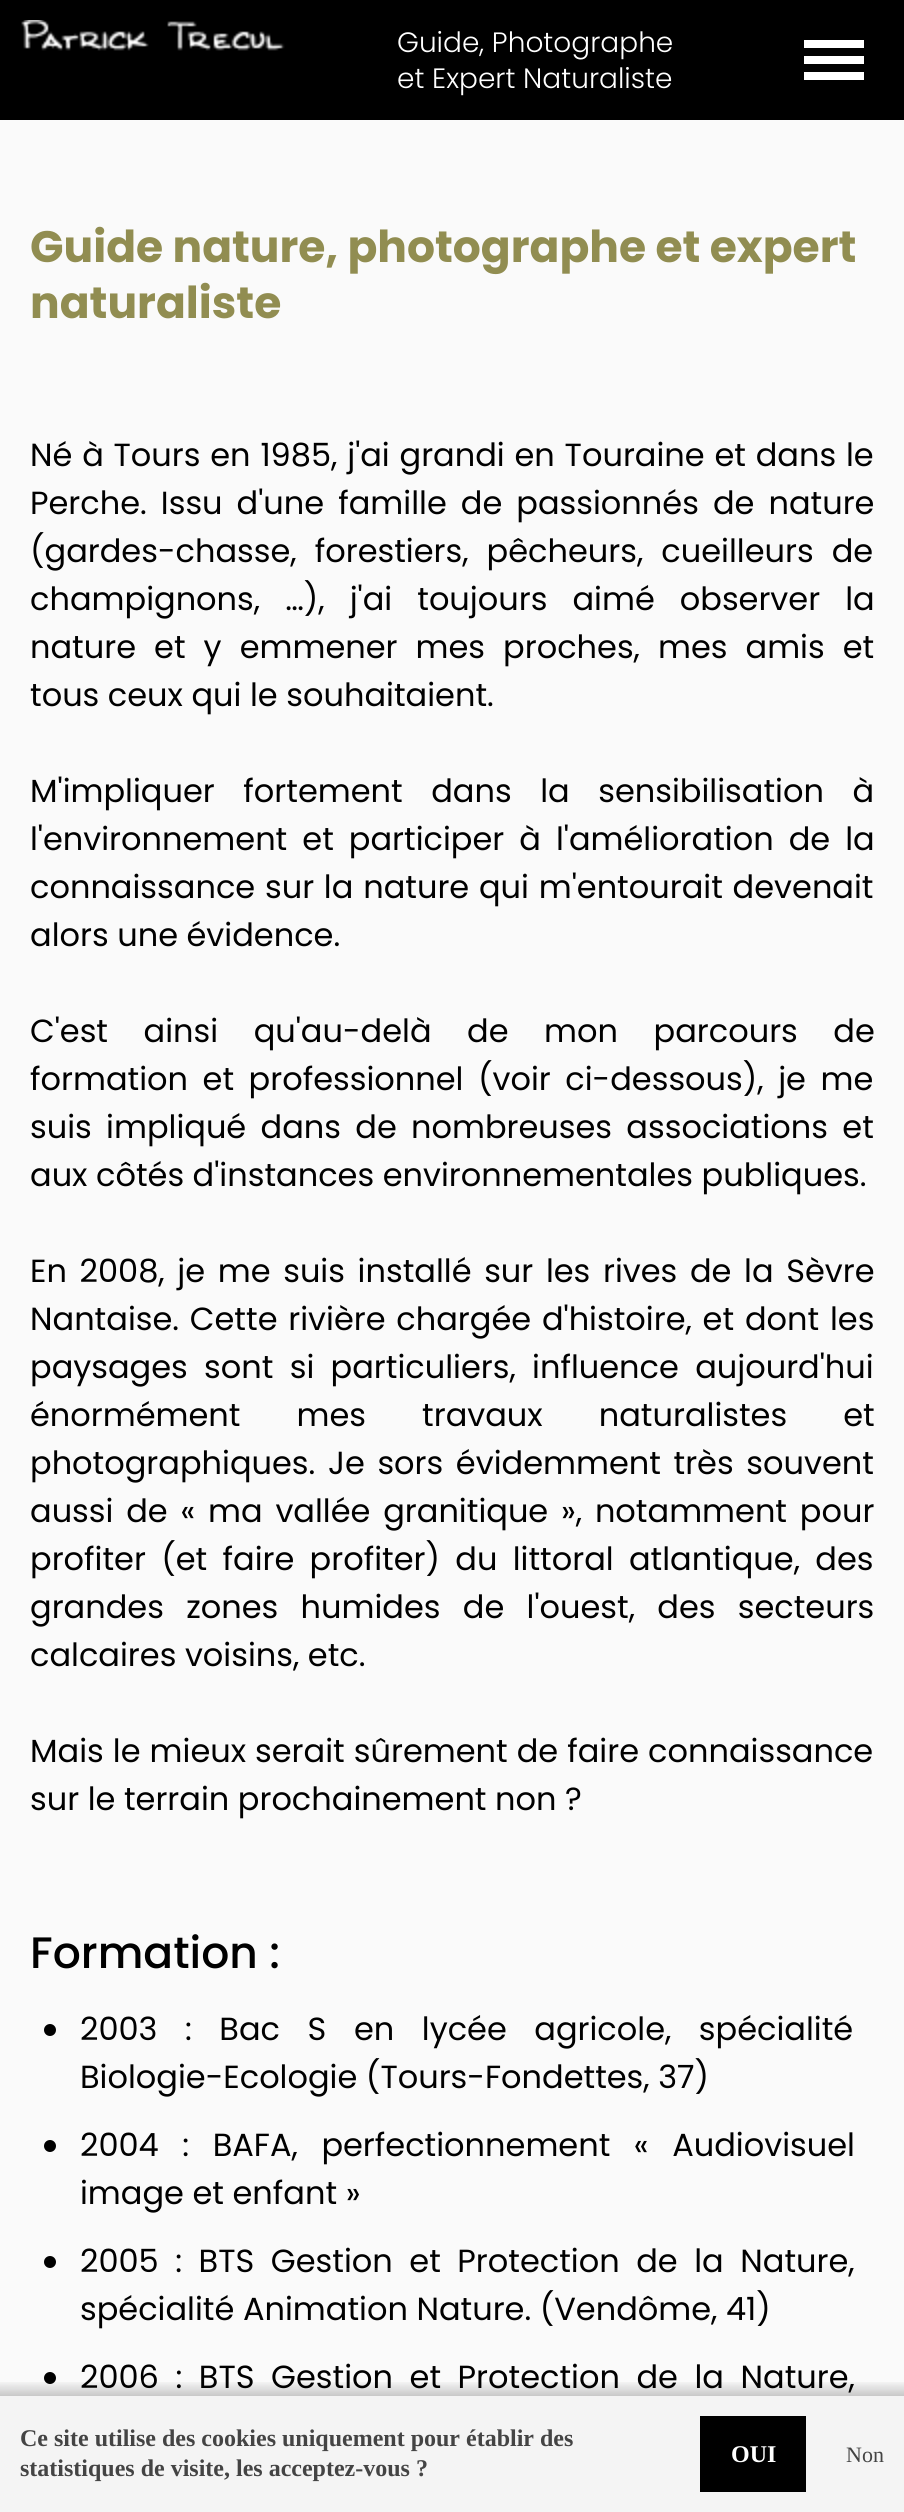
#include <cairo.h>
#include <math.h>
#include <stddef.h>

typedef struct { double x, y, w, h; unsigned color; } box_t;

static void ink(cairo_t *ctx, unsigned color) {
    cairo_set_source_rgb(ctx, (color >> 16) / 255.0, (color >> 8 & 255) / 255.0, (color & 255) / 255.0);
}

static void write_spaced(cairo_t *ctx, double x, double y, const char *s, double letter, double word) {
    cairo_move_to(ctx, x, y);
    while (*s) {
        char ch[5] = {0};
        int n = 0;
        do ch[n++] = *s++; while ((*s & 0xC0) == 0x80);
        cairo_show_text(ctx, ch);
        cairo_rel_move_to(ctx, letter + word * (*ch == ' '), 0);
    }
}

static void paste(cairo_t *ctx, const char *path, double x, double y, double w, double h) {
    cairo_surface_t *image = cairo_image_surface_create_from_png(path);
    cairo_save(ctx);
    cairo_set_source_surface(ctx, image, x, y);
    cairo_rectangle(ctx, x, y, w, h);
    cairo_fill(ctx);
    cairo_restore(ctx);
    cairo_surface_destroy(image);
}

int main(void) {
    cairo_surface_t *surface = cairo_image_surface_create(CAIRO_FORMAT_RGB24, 904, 2512);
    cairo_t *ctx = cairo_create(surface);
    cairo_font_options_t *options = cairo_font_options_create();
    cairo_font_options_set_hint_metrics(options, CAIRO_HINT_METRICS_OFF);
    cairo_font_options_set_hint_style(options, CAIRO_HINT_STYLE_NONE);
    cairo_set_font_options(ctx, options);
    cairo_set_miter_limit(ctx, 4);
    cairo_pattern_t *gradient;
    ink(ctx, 0xFAFAFA);
    cairo_paint(ctx);
    ink(ctx, 0x000000);
    cairo_rectangle(ctx, 0, 0, 904, 120);
    cairo_fill(ctx);
    paste(ctx, "media/1.png", 21, 20, 264, 31);
    cairo_select_font_face(ctx, "Poppins Light", CAIRO_FONT_SLANT_NORMAL, CAIRO_FONT_WEIGHT_NORMAL);
    cairo_set_font_size(ctx, 28);
    ink(ctx, 0xFFFFFF);
    cairo_move_to(ctx, 397, 52);
    cairo_show_text(ctx, "Guide, Photographe");
    cairo_move_to(ctx, 397, 88);
    cairo_show_text(ctx, "et Expert Naturaliste");
    {
        static const box_t items[] = {
            {804, 40, 60, 8, 0xFFFFFF},
            {804, 56, 60, 8, 0xFFFFFF},
            {804, 72, 60, 8, 0xFFFFFF},
        };
        for (size_t i = 0; i < sizeof items / sizeof *items; i++) {
            ink(ctx, items[i].color);
            cairo_rectangle(ctx, items[i].x, items[i].y, items[i].w, items[i].h);
            cairo_fill(ctx);
        }
    }
    cairo_select_font_face(ctx, "Poppins", CAIRO_FONT_SLANT_NORMAL, CAIRO_FONT_WEIGHT_BOLD);
    cairo_set_font_size(ctx, 44);
    ink(ctx, 0x918D51);
    cairo_move_to(ctx, 30, 262);
    cairo_show_text(ctx, "Guide nature, photographe et expert");
    cairo_move_to(ctx, 30, 318);
    cairo_show_text(ctx, "naturaliste");
    cairo_select_font_face(ctx, "Poppins", CAIRO_FONT_SLANT_NORMAL, CAIRO_FONT_WEIGHT_NORMAL);
    cairo_set_font_size(ctx, 32);
    ink(ctx, 0x000000);
    write_spaced(ctx, 30, 466, "Né à Tours en 1985, j'ai grandi en Touraine et dans le", 0, 1.25);
    write_spaced(ctx, 30, 514, "Perche. Issu d'une famille de passionnés de nature", 0, 5.5);
    write_spaced(ctx, 30, 562, "(gardes-chasse, forestiers, pêcheurs, cueilleurs de", 0, 9.5);
    write_spaced(ctx, 30, 610, "champignons, …), j'ai toujours aimé observer la", 0, 16.5);
    write_spaced(ctx, 30, 658, "nature et y emmener mes proches, mes amis et", 0, 9.5);
    cairo_move_to(ctx, 30, 706);
    cairo_show_text(ctx, "tous ceux qui le souhaitaient.");
    write_spaced(ctx, 30, 802, "M'impliquer fortement dans la sensibilisation à", 0, 20);
    write_spaced(ctx, 30, 850, "l'environnement et participer à l'amélioration de la", 0, 6.5);
    write_spaced(ctx, 30, 898, "connaissance sur la nature qui m'entourait devenait", 0, 1.25);
    cairo_move_to(ctx, 30, 946);
    cairo_show_text(ctx, "alors une évidence.");
    write_spaced(ctx, 30, 1042, "C'est ainsi qu'au-delà de mon parcours de", 0, 27);
    write_spaced(ctx, 30, 1090, "formation et professionnel (voir ci-dessous), je me", 0, 6);
    write_spaced(ctx, 30, 1138, "suis impliqué dans de nombreuses associations et", 0, 5.75);
    cairo_move_to(ctx, 30, 1186);
    cairo_show_text(ctx, "aux côtés d'instances environnementales publiques.");
    write_spaced(ctx, 30, 1282, "En 2008, je me suis installé sur les rives de la Sèvre", 0, 4.1);
    write_spaced(ctx, 30, 1330, "Nantaise. Cette rivière chargée d'histoire, et dont les", 0, 2.25);
    write_spaced(ctx, 30, 1378, "paysages sont si particuliers, influence aujourd'hui", 0, 7.75);
    write_spaced(ctx, 30, 1426, "énormément mes travaux naturalistes et", 0, 47.5);
    write_spaced(ctx, 30, 1474, "photographiques. Je sors évidemment très souvent", 0, 4.1);
    write_spaced(ctx, 30, 1522, "aussi de « ma vallée granitique », notamment pour", 0, 4.25);
    write_spaced(ctx, 30, 1570, "profiter (et faire profiter) du littoral atlantique, des", 0, 6.75);
    write_spaced(ctx, 30, 1618, "grandes zones humides de l'ouest, des secteurs", 0, 13.75);
    cairo_move_to(ctx, 30, 1666);
    cairo_show_text(ctx, "calcaires voisins, etc.");
    write_spaced(ctx, 30, 1762, "Mais le mieux serait sûrement de faire connaissance", 0, 0.5);
    cairo_move_to(ctx, 30, 1810);
    cairo_show_text(ctx, "sur le terrain prochainement non ?");
    cairo_select_font_face(ctx, "Poppins Medium", CAIRO_FONT_SLANT_NORMAL, CAIRO_FONT_WEIGHT_NORMAL);
    cairo_set_font_size(ctx, 44);
    cairo_move_to(ctx, 30, 1968);
    cairo_show_text(ctx, "Formation :");
    cairo_new_path(ctx);
    cairo_arc(ctx, 50, 2030, 6, 0, 2 * M_PI);
    cairo_fill(ctx);
    cairo_select_font_face(ctx, "Poppins", CAIRO_FONT_SLANT_NORMAL, CAIRO_FONT_WEIGHT_NORMAL);
    cairo_set_font_size(ctx, 32);
    write_spaced(ctx, 80, 2040, "2003 : Bac S en lycée agricole, spécialité", 0, 19);
    cairo_move_to(ctx, 80, 2088);
    cairo_show_text(ctx, "Biologie-Ecologie (Tours-Fondettes, 37)");
    cairo_new_path(ctx);
    cairo_arc(ctx, 50, 2146, 6, 0, 2 * M_PI);
    cairo_fill(ctx);
    write_spaced(ctx, 80, 2156, "2004 : BAFA, perfectionnement « Audiovisuel", 0, 15);
    cairo_move_to(ctx, 80, 2204);
    cairo_show_text(ctx, "image et enfant »");
    cairo_new_path(ctx);
    cairo_arc(ctx, 50, 2262, 6, 0, 2 * M_PI);
    cairo_fill(ctx);
    write_spaced(ctx, 80, 2272, "2005 : BTS Gestion et Protection de la Nature,", 0, 8);
    cairo_move_to(ctx, 80, 2320);
    cairo_show_text(ctx, "spécialité Animation Nature. (Vendôme, 41)");
    cairo_new_path(ctx);
    cairo_arc(ctx, 50, 2378, 6, 0, 2 * M_PI);
    cairo_fill(ctx);
    write_spaced(ctx, 80, 2388, "2006 : BTS Gestion et Protection de la Nature,", 0, 8);
    gradient = cairo_pattern_create_linear(452, 2396, 452, 2380);
    cairo_pattern_add_color_stop_rgba(gradient, 0, 0, 0, 0, 0.2);
    cairo_pattern_add_color_stop_rgba(gradient, 1, 0, 0, 0, 0);
    cairo_set_source(ctx, gradient);
    cairo_pattern_destroy(gradient);
    cairo_rectangle(ctx, 0, 2382, 904, 14);
    cairo_fill(ctx);
    ink(ctx, 0xF4F4F4);
    cairo_rectangle(ctx, 0, 2396, 904, 116);
    cairo_fill(ctx);
    cairo_select_font_face(ctx, "Liberation Serif", CAIRO_FONT_SLANT_NORMAL, CAIRO_FONT_WEIGHT_BOLD);
    cairo_set_font_size(ctx, 24);
    ink(ctx, 0x444444);
    cairo_move_to(ctx, 20, 2446);
    cairo_show_text(ctx, "Ce site utilise des cookies uniquement pour établir des");
    cairo_move_to(ctx, 20, 2476);
    cairo_show_text(ctx, "statistiques de visite, les acceptez-vous ?");
    ink(ctx, 0x000000);
    cairo_rectangle(ctx, 700, 2416, 106, 76);
    cairo_fill(ctx);
    ink(ctx, 0xFFFFFF);
    cairo_move_to(ctx, 731, 2462);
    cairo_show_text(ctx, "OUI");
    cairo_select_font_face(ctx, "Liberation Serif", CAIRO_FONT_SLANT_NORMAL, CAIRO_FONT_WEIGHT_NORMAL);
    cairo_set_font_size(ctx, 22);
    ink(ctx, 0x444444);
    cairo_move_to(ctx, 846, 2462);
    cairo_show_text(ctx, "Non");
    cairo_surface_write_to_png(surface, "image.png");
    cairo_font_options_destroy(options);
    cairo_destroy(ctx);
    cairo_surface_destroy(surface);
    return 0;
}
